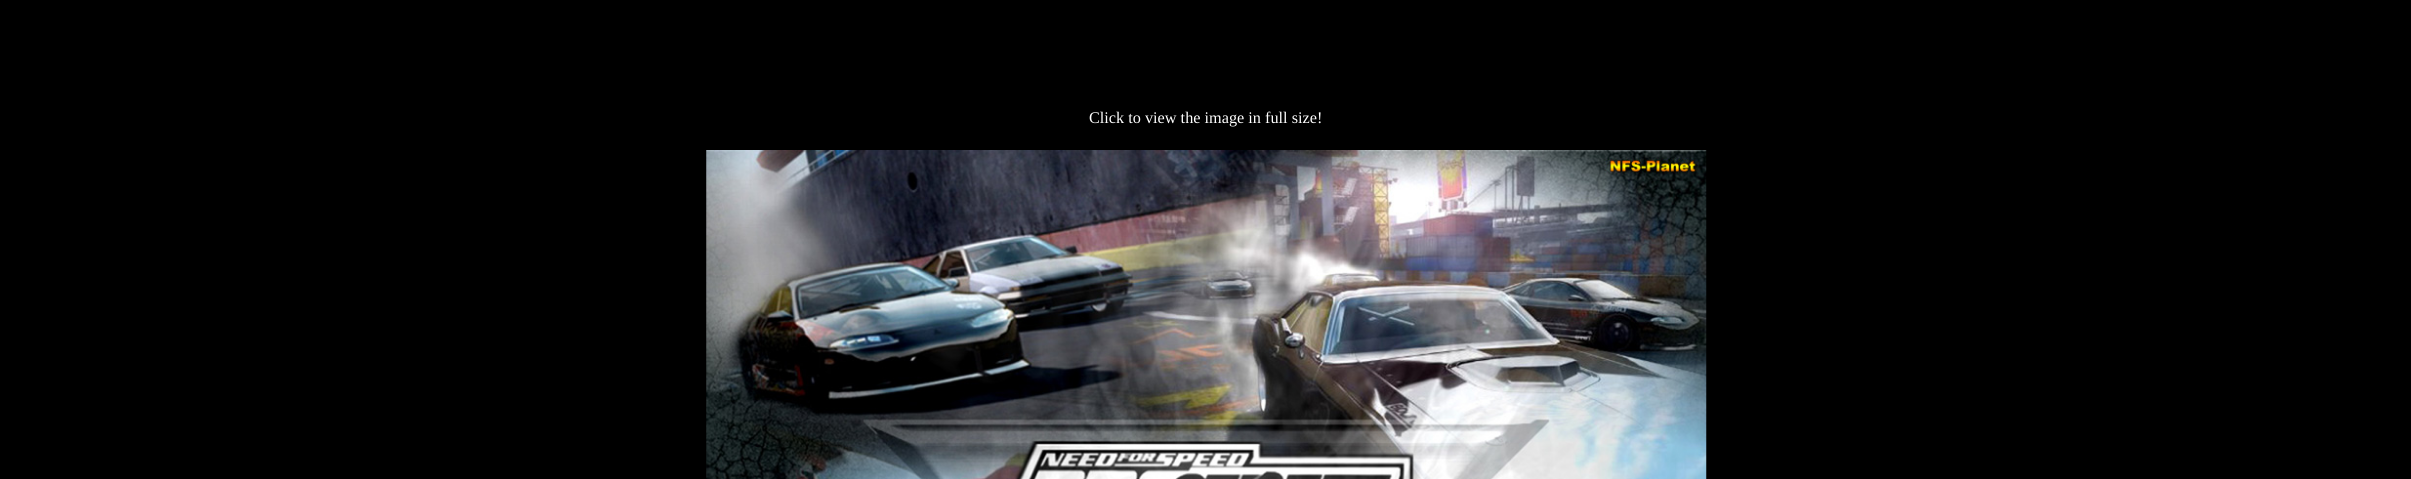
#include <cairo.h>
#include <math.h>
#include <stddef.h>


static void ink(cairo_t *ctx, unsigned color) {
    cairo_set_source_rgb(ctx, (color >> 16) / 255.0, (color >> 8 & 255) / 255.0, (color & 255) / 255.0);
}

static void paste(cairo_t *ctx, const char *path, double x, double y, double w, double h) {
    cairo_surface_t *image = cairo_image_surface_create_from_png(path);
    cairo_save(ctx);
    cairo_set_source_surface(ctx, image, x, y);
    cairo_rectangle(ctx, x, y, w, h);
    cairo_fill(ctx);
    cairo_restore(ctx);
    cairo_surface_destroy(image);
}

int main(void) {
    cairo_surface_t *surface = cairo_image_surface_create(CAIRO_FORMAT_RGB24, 2411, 479);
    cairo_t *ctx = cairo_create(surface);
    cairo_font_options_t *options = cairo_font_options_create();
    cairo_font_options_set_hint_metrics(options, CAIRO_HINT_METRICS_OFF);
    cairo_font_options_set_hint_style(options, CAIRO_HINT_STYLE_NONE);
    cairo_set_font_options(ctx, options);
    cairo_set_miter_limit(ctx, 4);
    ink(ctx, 0x000000);
    cairo_paint(ctx);
    cairo_select_font_face(ctx, "Liberation Serif", CAIRO_FONT_SLANT_NORMAL, CAIRO_FONT_WEIGHT_NORMAL);
    cairo_set_font_size(ctx, 16.25);
    ink(ctx, 0xFFFFFF);
    cairo_move_to(ctx, 1089, 123);
    cairo_show_text(ctx, "Click to view the image in full size!");
    paste(ctx, "media/1.png", 706, 150, 1001, 329);
    cairo_surface_write_to_png(surface, "image.png");
    cairo_font_options_destroy(options);
    cairo_destroy(ctx);
    cairo_surface_destroy(surface);
    return 0;
}
